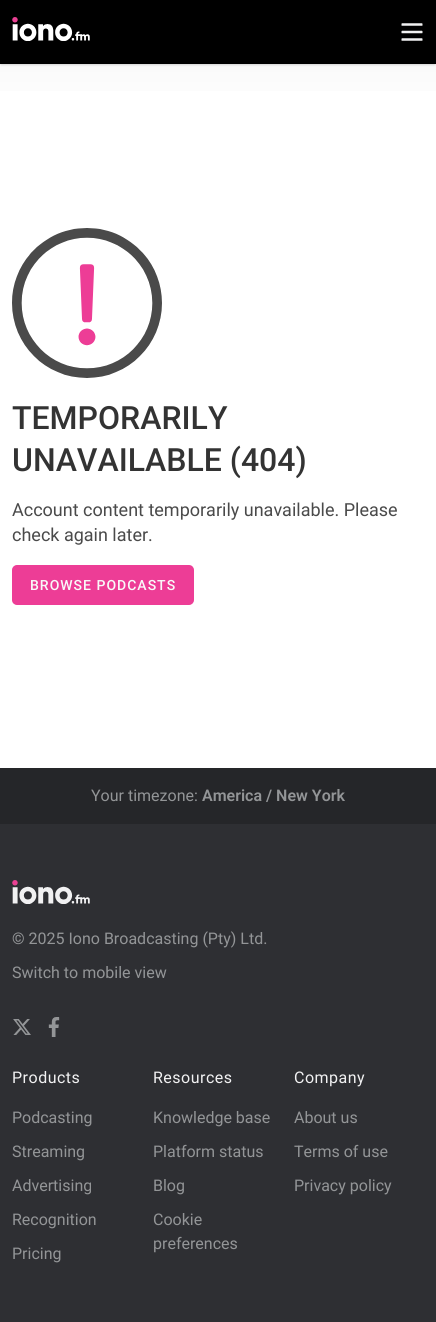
#include <cairo.h>
#include <math.h>
#include <stddef.h>

typedef struct { double x, y; const char *s; } line_t;

static void ink(cairo_t *ctx, unsigned color) {
    cairo_set_source_rgb(ctx, (color >> 16) / 255.0, (color >> 8 & 255) / 255.0, (color & 255) / 255.0);
}

static void write_spaced(cairo_t *ctx, double x, double y, const char *s, double letter, double word) {
    cairo_move_to(ctx, x, y);
    while (*s) {
        char ch[5] = {0};
        int n = 0;
        do ch[n++] = *s++; while ((*s & 0xC0) == 0x80);
        cairo_show_text(ctx, ch);
        cairo_rel_move_to(ctx, letter + word * (*ch == ' '), 0);
    }
}

static void round_path(cairo_t *ctx, double x, double y, double w, double h, double r) {
    cairo_new_sub_path(ctx);
    cairo_arc(ctx, x + w - r, y + h - r, r, 0, M_PI / 2);
    cairo_arc(ctx, x + r, y + h - r, r, M_PI / 2, M_PI);
    cairo_arc(ctx, x + r, y + r, r, M_PI, 1.5 * M_PI);
    cairo_arc(ctx, x + w - r, y + r, r, 1.5 * M_PI, 2 * M_PI);
    cairo_close_path(ctx);
}

static void blur_box(cairo_t *ctx, double x, double y, double w, double h, double r, double blur, double alpha) {
    cairo_push_group_with_content(ctx, CAIRO_CONTENT_ALPHA);
    cairo_set_operator(ctx, CAIRO_OPERATOR_SOURCE);
    for (int i = 15; i >= -15 && fmin(w, h) + blur * i / 3 > 0; i -= 2) {
        double e = blur * i / 6;
        cairo_set_source_rgba(ctx, 0, 0, 0, alpha * erfc((i - 1) / 8.5) / 2);
        round_path(ctx, x - e, y - e, w + 2 * e, h + 2 * e, fmax(0, fmin(r + e + blur * .6, fmin(w, h) / 2 + e)));
        cairo_fill(ctx);
    }
    cairo_pattern_t *soft = cairo_pop_group(ctx);
    cairo_mask(ctx, soft);
    cairo_pattern_destroy(soft);
}

static void paste(cairo_t *ctx, const char *path, double x, double y, double w, double h) {
    cairo_surface_t *image = cairo_image_surface_create_from_png(path);
    cairo_save(ctx);
    cairo_set_source_surface(ctx, image, x, y);
    cairo_rectangle(ctx, x, y, w, h);
    cairo_fill(ctx);
    cairo_restore(ctx);
    cairo_surface_destroy(image);
}

int main(void) {
    cairo_surface_t *surface = cairo_image_surface_create(CAIRO_FORMAT_RGB24, 436, 1322);
    cairo_t *ctx = cairo_create(surface);
    cairo_font_options_t *options = cairo_font_options_create();
    cairo_font_options_set_hint_metrics(options, CAIRO_HINT_METRICS_OFF);
    cairo_font_options_set_hint_style(options, CAIRO_HINT_STYLE_NONE);
    cairo_set_font_options(ctx, options);
    cairo_set_miter_limit(ctx, 4);
    cairo_pattern_t *gradient;
    ink(ctx, 0xFFFFFF);
    cairo_paint(ctx);
    gradient = cairo_pattern_create_linear(218, 0, 218, 1322);
    cairo_pattern_add_color_stop_rgba(gradient, 0, 0.953, 0.953, 0.953, 1);
    cairo_pattern_add_color_stop_rgba(gradient, 0.08, 0.996, 0.996, 0.996, 1);
    cairo_set_source(ctx, gradient);
    cairo_pattern_destroy(gradient);
    cairo_rectangle(ctx, 0, 64, 436, 27);
    cairo_fill(ctx);
    ink(ctx, 0x000000);
    blur_box(ctx, 1, 2, 434, 62, 0, 1.5, 0.3);
    ink(ctx, 0x000000);
    cairo_rectangle(ctx, 0, 0, 436, 64);
    cairo_fill(ctx);
    paste(ctx, "media/1.png", 12, 17, 78, 24);
    paste(ctx, "media/2.png", 401, 23, 22, 18);
    paste(ctx, "media/3.png", 12, 228, 150, 150);
    cairo_select_font_face(ctx, "Roboto Medium", CAIRO_FONT_SLANT_NORMAL, CAIRO_FONT_WEIGHT_NORMAL);
    cairo_set_font_size(ctx, 32);
    ink(ctx, 0x333333);
    cairo_move_to(ctx, 12, 429);
    cairo_show_text(ctx, "TEMPORARILY");
    cairo_move_to(ctx, 12, 471);
    cairo_show_text(ctx, "UNAVAILABLE (404)");
    cairo_select_font_face(ctx, "Roboto", CAIRO_FONT_SLANT_NORMAL, CAIRO_FONT_WEIGHT_NORMAL);
    cairo_set_font_size(ctx, 18);
    ink(ctx, 0x4A4A4A);
    cairo_move_to(ctx, 12, 516);
    cairo_show_text(ctx, "Account content temporarily unavailable. Please");
    cairo_move_to(ctx, 12, 541);
    cairo_show_text(ctx, "check again later.");
    ink(ctx, 0xED3D96);
    round_path(ctx, 13, 566, 180, 38, 4);
    cairo_fill_preserve(ctx);
    cairo_stroke(ctx);
    cairo_select_font_face(ctx, "Roboto Medium", CAIRO_FONT_SLANT_NORMAL, CAIRO_FONT_WEIGHT_NORMAL);
    cairo_set_font_size(ctx, 14);
    ink(ctx, 0xF9F9F9);
    write_spaced(ctx, 30, 590, "BROWSE PODCASTS", 1, 0);
    ink(ctx, 0x2E2F33);
    cairo_rectangle(ctx, 0, 824, 436, 498);
    cairo_fill(ctx);
    ink(ctx, 0x252629);
    cairo_rectangle(ctx, 0, 768, 436, 56);
    cairo_fill(ctx);
    cairo_select_font_face(ctx, "Roboto", CAIRO_FONT_SLANT_NORMAL, CAIRO_FONT_WEIGHT_NORMAL);
    cairo_set_font_size(ctx, 16);
    ink(ctx, 0x939597);
    cairo_move_to(ctx, 91, 801);
    cairo_show_text(ctx, "Your timezone:");
    cairo_select_font_face(ctx, "Roboto SemiBold", CAIRO_FONT_SLANT_NORMAL, CAIRO_FONT_WEIGHT_NORMAL);
    cairo_move_to(ctx, 202, 801);
    cairo_show_text(ctx, "America / New York");
    paste(ctx, "media/4.png", 12, 880, 78, 24);
    cairo_select_font_face(ctx, "Roboto", CAIRO_FONT_SLANT_NORMAL, CAIRO_FONT_WEIGHT_NORMAL);
    cairo_move_to(ctx, 12, 944);
    cairo_show_text(ctx, "© 2025 Iono Broadcasting (Pty) Ltd.");
    cairo_move_to(ctx, 12, 978);
    cairo_show_text(ctx, "Switch to mobile view");
    paste(ctx, "media/5.png", 13, 1019, 18, 16);
    paste(ctx, "media/6.png", 48, 1017, 12, 20);
    ink(ctx, 0xF1F1F2);
    write_spaced(ctx, 12, 1083, "Products", 0.5, 0);
    ink(ctx, 0x939597);
    {
        static const line_t items[] = {
            {12, 1123, "Podcasting"},
            {12, 1157, "Streaming"},
            {12, 1191, "Advertising"},
            {12, 1225, "Recognition"},
            {12, 1259, "Pricing"},
        };
        for (size_t i = 0; i < sizeof items / sizeof *items; i++) {
            cairo_move_to(ctx, items[i].x, items[i].y);
            cairo_show_text(ctx, items[i].s);
        }
    }
    ink(ctx, 0xF1F1F2);
    write_spaced(ctx, 153, 1083, "Resources", 0.5, 0);
    ink(ctx, 0x939597);
    {
        static const line_t items[] = {
            {153, 1123, "Knowledge base"},
            {153, 1157, "Platform status"},
            {153, 1191, "Blog"},
            {153, 1225, "Cookie"},
            {153, 1249, "preferences"},
        };
        for (size_t i = 0; i < sizeof items / sizeof *items; i++) {
            cairo_move_to(ctx, items[i].x, items[i].y);
            cairo_show_text(ctx, items[i].s);
        }
    }
    ink(ctx, 0xF1F1F2);
    write_spaced(ctx, 294, 1083, "Company", 0.5, 0);
    ink(ctx, 0x939597);
    {
        static const line_t items[] = {
            {294, 1123, "About us"},
            {294, 1157, "Terms of use"},
            {294, 1191, "Privacy policy"},
        };
        for (size_t i = 0; i < sizeof items / sizeof *items; i++) {
            cairo_move_to(ctx, items[i].x, items[i].y);
            cairo_show_text(ctx, items[i].s);
        }
    }
    cairo_surface_write_to_png(surface, "image.png");
    cairo_font_options_destroy(options);
    cairo_destroy(ctx);
    cairo_surface_destroy(surface);
    return 0;
}
